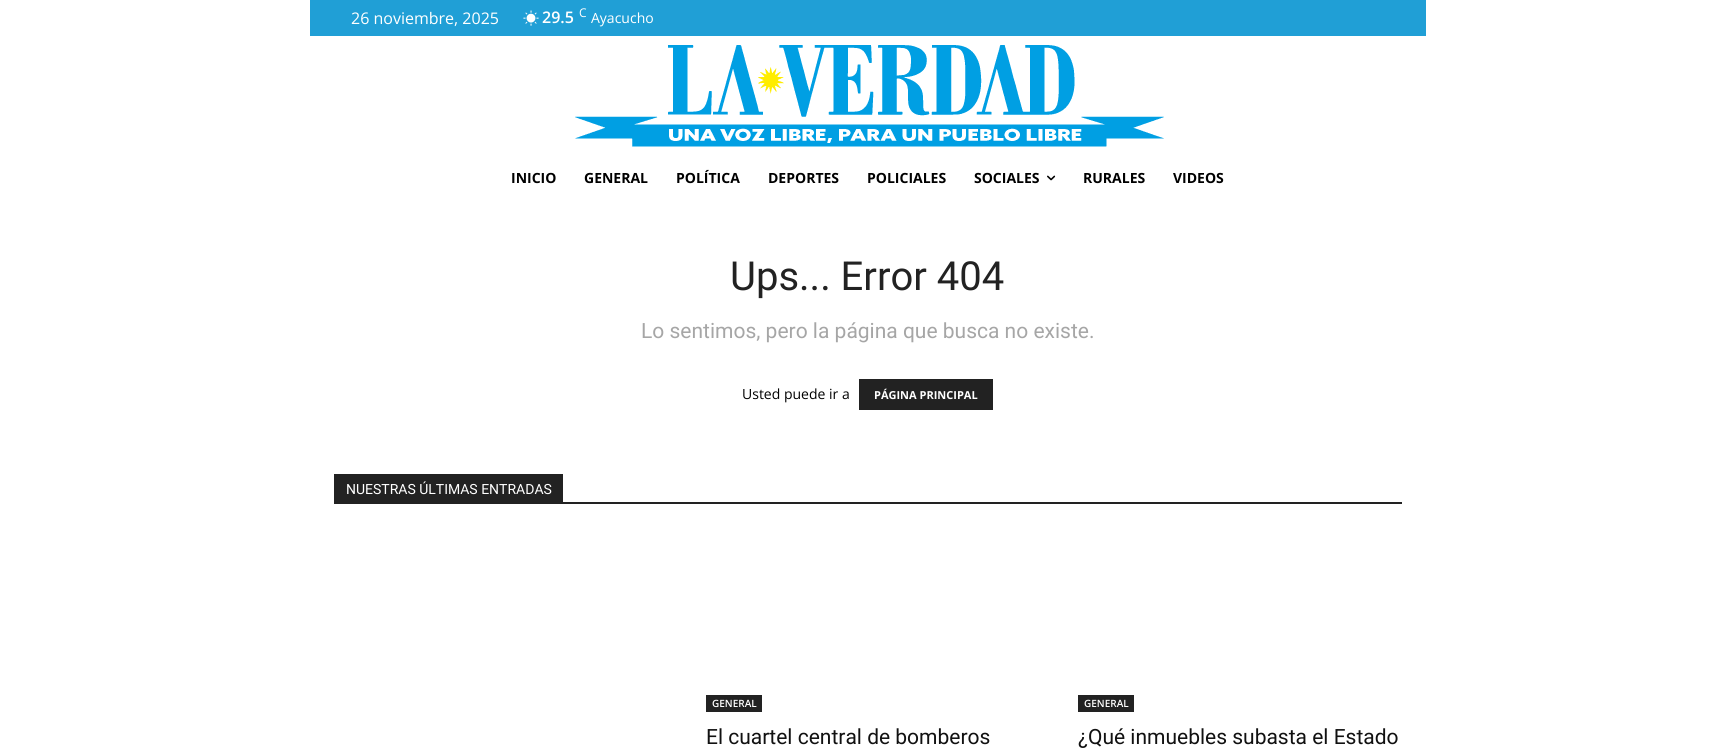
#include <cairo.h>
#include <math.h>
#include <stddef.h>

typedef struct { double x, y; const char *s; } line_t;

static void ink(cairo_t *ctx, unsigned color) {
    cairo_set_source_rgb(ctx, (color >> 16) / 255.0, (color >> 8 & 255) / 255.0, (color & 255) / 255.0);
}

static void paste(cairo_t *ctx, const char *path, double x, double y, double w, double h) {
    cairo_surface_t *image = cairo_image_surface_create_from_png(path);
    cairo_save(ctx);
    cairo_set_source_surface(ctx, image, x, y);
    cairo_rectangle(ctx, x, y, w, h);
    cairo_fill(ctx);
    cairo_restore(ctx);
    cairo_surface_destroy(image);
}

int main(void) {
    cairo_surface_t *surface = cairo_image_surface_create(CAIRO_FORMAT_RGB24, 1735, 754);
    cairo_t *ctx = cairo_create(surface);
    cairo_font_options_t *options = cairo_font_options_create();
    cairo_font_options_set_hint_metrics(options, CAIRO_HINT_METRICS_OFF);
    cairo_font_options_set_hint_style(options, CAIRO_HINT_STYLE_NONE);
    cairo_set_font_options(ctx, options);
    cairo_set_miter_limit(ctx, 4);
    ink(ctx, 0xFFFFFF);
    cairo_paint(ctx);
    ink(ctx, 0x209FD6);
    cairo_rectangle(ctx, 310, 0, 1116, 36);
    cairo_fill(ctx);
    cairo_select_font_face(ctx, "Open Sans", CAIRO_FONT_SLANT_NORMAL, CAIRO_FONT_WEIGHT_NORMAL);
    cairo_set_font_size(ctx, 16);
    ink(ctx, 0xFFFFFF);
    cairo_move_to(ctx, 351, 24);
    cairo_show_text(ctx, "26 noviembre, 2025");
    paste(ctx, "media/1.png", 523, 10, 16, 16);
    cairo_select_font_face(ctx, "Open Sans SemiBold", CAIRO_FONT_SLANT_NORMAL, CAIRO_FONT_WEIGHT_NORMAL);
    cairo_move_to(ctx, 542, 23);
    cairo_show_text(ctx, "29.5");
    cairo_select_font_face(ctx, "Open Sans", CAIRO_FONT_SLANT_NORMAL, CAIRO_FONT_WEIGHT_NORMAL);
    cairo_set_font_size(ctx, 12);
    cairo_move_to(ctx, 579, 17);
    cairo_show_text(ctx, "C");
    cairo_set_font_size(ctx, 14);
    cairo_move_to(ctx, 591, 23);
    cairo_show_text(ctx, "Ayacucho");
    paste(ctx, "media/2.png", 575, 45, 589, 102);
    cairo_select_font_face(ctx, "Open Sans", CAIRO_FONT_SLANT_NORMAL, CAIRO_FONT_WEIGHT_BOLD);
    ink(ctx, 0x000000);
    {
        static const line_t items[] = {
            {511, 183, "INICIO"},
            {584, 183, "GENERAL"},
            {676, 183, "POLÍTICA"},
            {768, 183, "DEPORTES"},
            {867, 183, "POLICIALES"},
            {974, 183, "SOCIALES"},
        };
        for (size_t i = 0; i < sizeof items / sizeof *items; i++) {
            cairo_move_to(ctx, items[i].x, items[i].y);
            cairo_show_text(ctx, items[i].s);
        }
    }
    paste(ctx, "media/3.png", 1047, 175, 9, 6);
    cairo_move_to(ctx, 1083, 183);
    cairo_show_text(ctx, "RURALES");
    cairo_move_to(ctx, 1173, 183);
    cairo_show_text(ctx, "VIDEOS");
    cairo_select_font_face(ctx, "Roboto", CAIRO_FONT_SLANT_NORMAL, CAIRO_FONT_WEIGHT_NORMAL);
    cairo_set_font_size(ctx, 40);
    ink(ctx, 0x222222);
    cairo_move_to(ctx, 730, 290);
    cairo_show_text(ctx, "Ups... Error 404");
    cairo_set_font_size(ctx, 21);
    ink(ctx, 0xA6A6A6);
    cairo_move_to(ctx, 641, 338);
    cairo_show_text(ctx, "Lo sentimos, pero la página que busca no existe.");
    cairo_select_font_face(ctx, "Open Sans", CAIRO_FONT_SLANT_NORMAL, CAIRO_FONT_WEIGHT_NORMAL);
    cairo_set_font_size(ctx, 14);
    ink(ctx, 0x000000);
    cairo_move_to(ctx, 742, 399);
    cairo_show_text(ctx, "Usted puede ir a");
    ink(ctx, 0x222222);
    cairo_rectangle(ctx, 859, 379, 134, 31);
    cairo_fill(ctx);
    cairo_select_font_face(ctx, "Open Sans", CAIRO_FONT_SLANT_NORMAL, CAIRO_FONT_WEIGHT_BOLD);
    cairo_set_font_size(ctx, 11);
    ink(ctx, 0xFFFFFF);
    cairo_move_to(ctx, 874, 399);
    cairo_show_text(ctx, "PÁGINA PRINCIPAL");
    ink(ctx, 0x222222);
    cairo_rectangle(ctx, 334, 502, 1068, 2);
    cairo_fill(ctx);
    cairo_rectangle(ctx, 334, 474, 229, 28);
    cairo_fill(ctx);
    cairo_select_font_face(ctx, "Roboto", CAIRO_FONT_SLANT_NORMAL, CAIRO_FONT_WEIGHT_NORMAL);
    cairo_set_font_size(ctx, 14);
    ink(ctx, 0xFFFFFF);
    cairo_move_to(ctx, 346, 494);
    cairo_show_text(ctx, "NUESTRAS ÚLTIMAS ENTRADAS");
    ink(ctx, 0x222222);
    cairo_rectangle(ctx, 706, 695, 56, 17);
    cairo_fill(ctx);
    cairo_select_font_face(ctx, "Open Sans SemiBold", CAIRO_FONT_SLANT_NORMAL, CAIRO_FONT_WEIGHT_NORMAL);
    cairo_set_font_size(ctx, 10);
    ink(ctx, 0xFFFFFF);
    cairo_move_to(ctx, 712, 707);
    cairo_show_text(ctx, "GENERAL");
    cairo_select_font_face(ctx, "Roboto", CAIRO_FONT_SLANT_NORMAL, CAIRO_FONT_WEIGHT_NORMAL);
    cairo_set_font_size(ctx, 21);
    ink(ctx, 0x111111);
    cairo_move_to(ctx, 706, 744);
    cairo_show_text(ctx, "El cuartel central de bomberos");
    ink(ctx, 0x222222);
    cairo_rectangle(ctx, 1078, 695, 56, 17);
    cairo_fill(ctx);
    cairo_select_font_face(ctx, "Open Sans SemiBold", CAIRO_FONT_SLANT_NORMAL, CAIRO_FONT_WEIGHT_NORMAL);
    cairo_set_font_size(ctx, 10);
    ink(ctx, 0xFFFFFF);
    cairo_move_to(ctx, 1084, 707);
    cairo_show_text(ctx, "GENERAL");
    cairo_select_font_face(ctx, "Roboto", CAIRO_FONT_SLANT_NORMAL, CAIRO_FONT_WEIGHT_NORMAL);
    cairo_set_font_size(ctx, 21);
    ink(ctx, 0x111111);
    cairo_move_to(ctx, 1078, 744);
    cairo_show_text(ctx, "¿Qué inmuebles subasta el Estado");
    cairo_surface_write_to_png(surface, "image.png");
    cairo_font_options_destroy(options);
    cairo_destroy(ctx);
    cairo_surface_destroy(surface);
    return 0;
}
